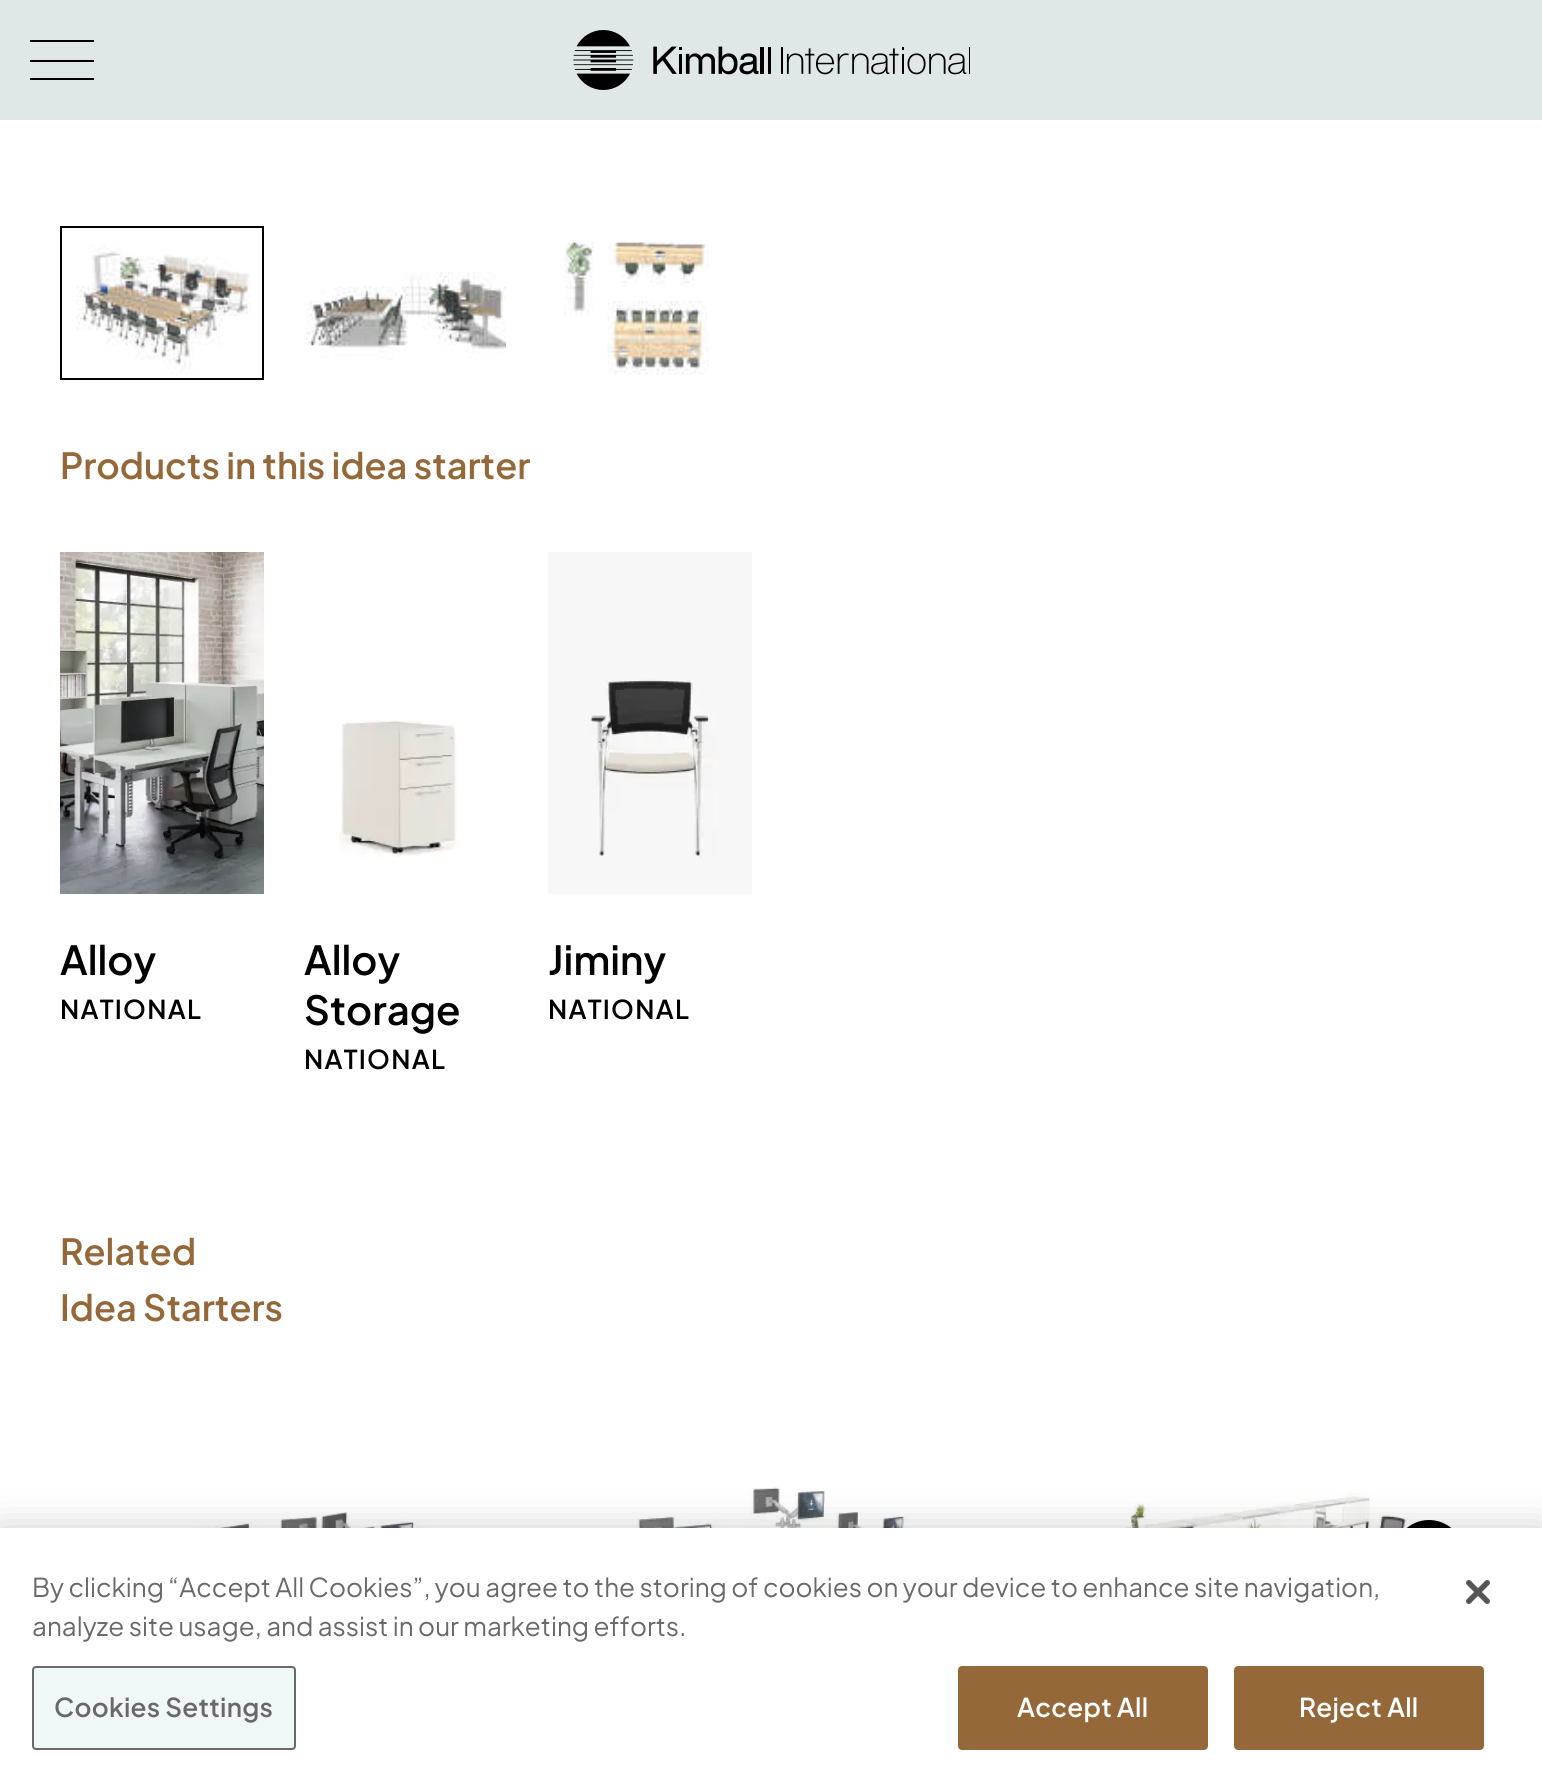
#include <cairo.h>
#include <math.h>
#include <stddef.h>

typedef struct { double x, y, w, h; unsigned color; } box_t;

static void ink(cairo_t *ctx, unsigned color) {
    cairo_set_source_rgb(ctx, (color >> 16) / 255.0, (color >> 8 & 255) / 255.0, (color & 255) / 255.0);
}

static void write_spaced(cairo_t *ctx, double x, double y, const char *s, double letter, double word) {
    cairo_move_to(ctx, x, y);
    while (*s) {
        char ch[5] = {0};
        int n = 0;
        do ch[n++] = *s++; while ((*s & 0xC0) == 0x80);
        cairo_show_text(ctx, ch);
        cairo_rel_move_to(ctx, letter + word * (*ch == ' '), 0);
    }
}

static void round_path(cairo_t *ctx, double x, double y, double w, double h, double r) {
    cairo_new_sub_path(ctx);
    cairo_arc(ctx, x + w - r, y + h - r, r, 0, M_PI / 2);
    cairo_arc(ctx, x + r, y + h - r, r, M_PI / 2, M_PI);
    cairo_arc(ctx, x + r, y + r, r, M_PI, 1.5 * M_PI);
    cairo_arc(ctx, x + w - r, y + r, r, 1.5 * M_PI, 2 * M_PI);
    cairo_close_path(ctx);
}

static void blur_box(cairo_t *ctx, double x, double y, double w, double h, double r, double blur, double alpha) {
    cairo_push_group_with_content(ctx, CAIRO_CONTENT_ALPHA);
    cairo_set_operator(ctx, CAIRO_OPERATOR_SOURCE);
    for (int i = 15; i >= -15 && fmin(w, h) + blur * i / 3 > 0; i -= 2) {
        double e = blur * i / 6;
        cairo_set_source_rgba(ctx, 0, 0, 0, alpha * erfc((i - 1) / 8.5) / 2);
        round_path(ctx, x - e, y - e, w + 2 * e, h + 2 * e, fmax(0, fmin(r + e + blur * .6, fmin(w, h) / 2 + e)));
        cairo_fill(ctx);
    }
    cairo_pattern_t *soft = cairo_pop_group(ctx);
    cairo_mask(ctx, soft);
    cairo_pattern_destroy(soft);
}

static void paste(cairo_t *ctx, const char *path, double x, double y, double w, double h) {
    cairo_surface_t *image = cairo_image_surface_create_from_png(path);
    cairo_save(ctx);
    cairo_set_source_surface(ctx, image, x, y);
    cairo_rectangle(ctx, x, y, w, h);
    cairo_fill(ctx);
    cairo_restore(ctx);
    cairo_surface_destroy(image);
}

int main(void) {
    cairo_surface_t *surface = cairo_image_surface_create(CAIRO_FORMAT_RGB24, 1542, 1789);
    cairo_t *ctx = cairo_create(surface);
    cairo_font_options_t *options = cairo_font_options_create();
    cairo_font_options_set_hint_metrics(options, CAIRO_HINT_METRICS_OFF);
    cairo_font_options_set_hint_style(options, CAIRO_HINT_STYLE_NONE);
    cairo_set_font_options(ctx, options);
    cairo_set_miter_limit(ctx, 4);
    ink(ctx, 0xFFFFFF);
    cairo_paint(ctx);
    {
        static const box_t items[] = {
            {0, 0, 1542, 120, 0xE0E7E7},
            {30, 40, 64, 2, 0x000000},
            {30, 60, 64, 2, 0x000000},
            {30, 78, 64, 2, 0x000000},
        };
        for (size_t i = 0; i < sizeof items / sizeof *items; i++) {
            ink(ctx, items[i].color);
            cairo_rectangle(ctx, items[i].x, items[i].y, items[i].w, items[i].h);
            cairo_fill(ctx);
        }
    }
    paste(ctx, "media/1.png", 573, 30, 397, 60);
    cairo_rectangle(ctx, 61, 227, 202, 152);
    cairo_stroke(ctx);
    paste(ctx, "media/2.png", 76, 245, 175, 129);
    paste(ctx, "media/3.png", 306, 272, 200, 88);
    paste(ctx, "media/4.png", 564, 242, 145, 133);
    cairo_select_font_face(ctx, "Plus Jakarta Sans SemiBold", CAIRO_FONT_SLANT_NORMAL, CAIRO_FONT_WEIGHT_NORMAL);
    cairo_set_font_size(ctx, 36);
    ink(ctx, 0x956839);
    cairo_move_to(ctx, 60, 479);
    cairo_show_text(ctx, "Products in this idea starter");
    paste(ctx, "media/5.png", 60, 552, 204, 342);
    cairo_set_font_size(ctx, 40);
    ink(ctx, 0x000000);
    cairo_move_to(ctx, 60, 975);
    cairo_show_text(ctx, "Alloy");
    cairo_set_font_size(ctx, 26);
    write_spaced(ctx, 60, 1019, "NATIONAL", 1.25, 0);
    paste(ctx, "media/6.png", 339, 719, 121, 138);
    cairo_set_font_size(ctx, 40);
    cairo_move_to(ctx, 304, 975);
    cairo_show_text(ctx, "Alloy");
    cairo_move_to(ctx, 304, 1025);
    cairo_show_text(ctx, "Storage");
    cairo_set_font_size(ctx, 26);
    write_spaced(ctx, 304, 1069, "NATIONAL", 1.25, 0);
    paste(ctx, "media/7.png", 548, 552, 204, 342);
    cairo_set_font_size(ctx, 40);
    cairo_move_to(ctx, 548, 975);
    cairo_show_text(ctx, "Jiminy");
    cairo_set_font_size(ctx, 26);
    write_spaced(ctx, 548, 1019, "NATIONAL", 1.25, 0);
    cairo_set_font_size(ctx, 36);
    ink(ctx, 0x956839);
    cairo_move_to(ctx, 60, 1265);
    cairo_show_text(ctx, "Related");
    cairo_move_to(ctx, 60, 1321);
    cairo_show_text(ctx, "Idea Starters");
    paste(ctx, "media/8.png", 60, 1428, 434, 100);
    paste(ctx, "media/9.png", 534, 1428, 434, 100);
    paste(ctx, "media/10.png", 1008, 1428, 434, 100);
    ink(ctx, 0x000000);
    cairo_arc(ctx, 1429, 1555, 35, 0, 2 * M_PI);
    cairo_fill(ctx);
    ink(ctx, 0x000000);
    blur_box(ctx, 0, 1528, 1542, 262, 0, 18, 0.2);
    ink(ctx, 0xFFFFFF);
    cairo_rectangle(ctx, 0, 1528, 1542, 261);
    cairo_fill(ctx);
    cairo_select_font_face(ctx, "Plus Jakarta Sans", CAIRO_FONT_SLANT_NORMAL, CAIRO_FONT_WEIGHT_NORMAL);
    cairo_set_font_size(ctx, 26.02);
    ink(ctx, 0x696969);
    cairo_move_to(ctx, 32, 1597);
    cairo_show_text(ctx, "By clicking “Accept All Cookies”, you agree to the storing of cookies on your device to enhance site navigation,");
    cairo_move_to(ctx, 32, 1636);
    cairo_show_text(ctx, "analyze site usage, and assist in our marketing efforts.");
    ink(ctx, 0xF0F7F7);
    round_path(ctx, 33, 1667, 262, 82, 3);
    cairo_fill_preserve(ctx);
    ink(ctx, 0x696969);
    cairo_stroke(ctx);
    cairo_select_font_face(ctx, "Plus Jakarta Sans SemiBold", CAIRO_FONT_SLANT_NORMAL, CAIRO_FONT_WEIGHT_NORMAL);
    write_spaced(ctx, 54, 1717, "Cookies Settings", 0.25, 0);
    ink(ctx, 0x956839);
    round_path(ctx, 959, 1667, 248, 82, 3);
    cairo_fill_preserve(ctx);
    cairo_stroke(ctx);
    ink(ctx, 0xFFFFFF);
    write_spaced(ctx, 1017, 1717, "Accept All", 0.25, 0);
    ink(ctx, 0x956839);
    round_path(ctx, 1235, 1667, 248, 82, 3);
    cairo_fill_preserve(ctx);
    cairo_stroke(ctx);
    ink(ctx, 0xFFFFFF);
    write_spaced(ctx, 1299, 1717, "Reject All", 0.25, 0);
    paste(ctx, "media/11.png", 1466, 1580, 24, 24);
    cairo_surface_write_to_png(surface, "image.png");
    cairo_font_options_destroy(options);
    cairo_destroy(ctx);
    cairo_surface_destroy(surface);
    return 0;
}
